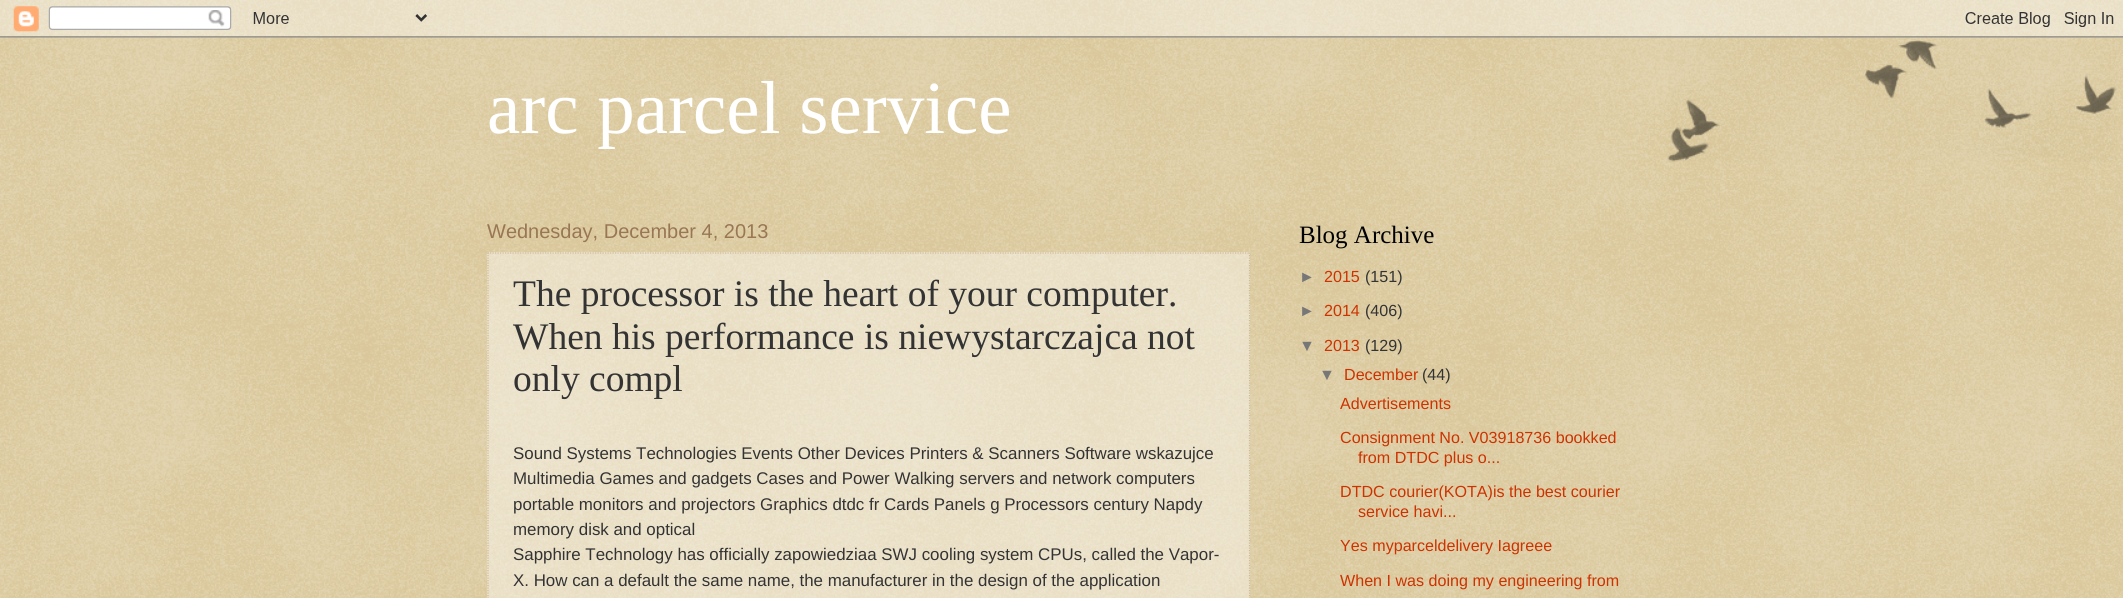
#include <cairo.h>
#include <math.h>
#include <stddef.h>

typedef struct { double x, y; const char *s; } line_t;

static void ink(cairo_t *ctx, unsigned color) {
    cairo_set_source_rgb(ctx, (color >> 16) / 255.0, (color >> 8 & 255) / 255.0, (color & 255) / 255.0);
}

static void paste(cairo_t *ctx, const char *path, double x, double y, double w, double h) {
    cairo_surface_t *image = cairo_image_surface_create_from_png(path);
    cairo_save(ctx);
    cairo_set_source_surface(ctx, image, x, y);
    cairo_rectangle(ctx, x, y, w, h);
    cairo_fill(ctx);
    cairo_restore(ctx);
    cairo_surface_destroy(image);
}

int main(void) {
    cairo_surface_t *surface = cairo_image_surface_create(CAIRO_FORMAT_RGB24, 2123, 598);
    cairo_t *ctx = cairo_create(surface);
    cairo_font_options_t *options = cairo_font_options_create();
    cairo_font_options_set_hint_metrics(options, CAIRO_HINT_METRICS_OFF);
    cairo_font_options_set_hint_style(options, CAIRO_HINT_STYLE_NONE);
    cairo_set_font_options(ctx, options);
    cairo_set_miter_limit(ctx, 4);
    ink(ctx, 0xC0A154);
    cairo_paint(ctx);
    paste(ctx, "media/1.png", 0, 0, 2123, 598);
    paste(ctx, "media/2.png", 0, 0, 2123, 38);
    cairo_select_font_face(ctx, "Liberation Serif", CAIRO_FONT_SLANT_NORMAL, CAIRO_FONT_WEIGHT_NORMAL);
    cairo_set_font_size(ctx, 75);
    ink(ctx, 0xFFFFFF);
    cairo_move_to(ctx, 487, 133);
    cairo_show_text(ctx, "arc parcel service");
    cairo_select_font_face(ctx, "Liberation Sans", CAIRO_FONT_SLANT_NORMAL, CAIRO_FONT_WEIGHT_NORMAL);
    cairo_set_font_size(ctx, 20);
    ink(ctx, 0x997755);
    cairo_move_to(ctx, 487, 238);
    cairo_show_text(ctx, "Wednesday, December 4, 2013");
    cairo_set_source_rgba(ctx, 1, 1, 1, 0.4);
    cairo_rectangle(ctx, 487, 252, 763, 346);
    cairo_fill(ctx);
    cairo_new_path(ctx);
    cairo_move_to(ctx, 487.5, 253);
    cairo_line_to(ctx, 1250, 253);
    ink(ctx, 0xCCBB99);
    cairo_set_line_width(ctx, 1.2);
    cairo_set_dash(ctx, (double[]){1.25, 1.25}, 2, 0);
    cairo_stroke(ctx);
    cairo_new_path(ctx);
    cairo_move_to(ctx, 1249.5, 252.5);
    cairo_line_to(ctx, 1249.5, 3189);
    cairo_stroke(ctx);
    cairo_new_path(ctx);
    cairo_move_to(ctx, 488, 252.5);
    cairo_line_to(ctx, 488, 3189);
    cairo_stroke(ctx);
    cairo_select_font_face(ctx, "Liberation Serif", CAIRO_FONT_SLANT_NORMAL, CAIRO_FONT_WEIGHT_NORMAL);
    cairo_set_font_size(ctx, 37.5);
    ink(ctx, 0x333333);
    {
        static const line_t items[] = {
            {513, 306, "The processor is the heart of your computer."},
            {513, 349, "When his performance is niewystarczajca not"},
            {513, 391, "only compl"},
        };
        for (size_t i = 0; i < sizeof items / sizeof *items; i++) {
            cairo_move_to(ctx, items[i].x, items[i].y);
            cairo_show_text(ctx, items[i].s);
        }
    }
    cairo_select_font_face(ctx, "Liberation Sans", CAIRO_FONT_SLANT_NORMAL, CAIRO_FONT_WEIGHT_NORMAL);
    cairo_set_font_size(ctx, 16.9);
    {
        static const line_t items[] = {
            {513, 459, "Sound Systems Technologies Events Other Devices Printers & Scanners Software wskazujce"},
            {513, 484, "Multimedia Games and gadgets Cases and Power Walking servers and network computers"},
            {513, 510, "portable monitors and projectors Graphics dtdc fr Cards Panels g Processors century Napdy"},
            {513, 535, "memory disk and optical"},
            {513, 560, "Sapphire Technology has officially zapowiedziaa SWJ cooling system CPUs, called the Vapor-"},
            {513, 586, "X. How can a default the same name, the manufacturer in the design of the application"},
        };
        for (size_t i = 0; i < sizeof items / sizeof *items; i++) {
            cairo_move_to(ctx, items[i].x, items[i].y);
            cairo_show_text(ctx, items[i].s);
        }
    }
    cairo_select_font_face(ctx, "Liberation Serif", CAIRO_FONT_SLANT_NORMAL, CAIRO_FONT_WEIGHT_NORMAL);
    cairo_set_font_size(ctx, 25);
    ink(ctx, 0x000000);
    cairo_move_to(ctx, 1299, 243);
    cairo_show_text(ctx, "Blog Archive");
    cairo_select_font_face(ctx, "Liberation Sans", CAIRO_FONT_SLANT_NORMAL, CAIRO_FONT_WEIGHT_NORMAL);
    cairo_set_font_size(ctx, 16.1);
    ink(ctx, 0x777777);
    cairo_move_to(ctx, 1299, 282);
    cairo_show_text(ctx, "►");
    ink(ctx, 0xCC3300);
    cairo_move_to(ctx, 1324, 282);
    cairo_show_text(ctx, "2015");
    ink(ctx, 0x333333);
    cairo_move_to(ctx, 1365, 282);
    cairo_show_text(ctx, "(151)");
    ink(ctx, 0x777777);
    cairo_move_to(ctx, 1299, 316);
    cairo_show_text(ctx, "►");
    ink(ctx, 0xCC3300);
    cairo_move_to(ctx, 1324, 316);
    cairo_show_text(ctx, "2014");
    ink(ctx, 0x333333);
    cairo_move_to(ctx, 1365, 316);
    cairo_show_text(ctx, "(406)");
    ink(ctx, 0x777777);
    cairo_move_to(ctx, 1299, 351);
    cairo_show_text(ctx, "▼");
    ink(ctx, 0xCC3300);
    cairo_move_to(ctx, 1324, 351);
    cairo_show_text(ctx, "2013");
    ink(ctx, 0x333333);
    cairo_move_to(ctx, 1365, 351);
    cairo_show_text(ctx, "(129)");
    ink(ctx, 0x777777);
    cairo_move_to(ctx, 1319, 380);
    cairo_show_text(ctx, "▼");
    ink(ctx, 0xCC3300);
    cairo_move_to(ctx, 1344, 380);
    cairo_show_text(ctx, "December");
    ink(ctx, 0x333333);
    cairo_move_to(ctx, 1422, 380);
    cairo_show_text(ctx, "(44)");
    ink(ctx, 0xCC3300);
    {
        static const line_t items[] = {
            {1340, 409, "Advertisements"},
            {1340, 443, "Consignment No. V03918736 bookked"},
            {1358, 463, "from DTDC plus o..."},
            {1340, 497, "DTDC courier(KOTA)is the best courier"},
            {1358, 517, "service havi..."},
            {1340, 551, "Yes myparceldelivery Iagreee"},
            {1340, 586, "When I was doing my engineering from"},
        };
        for (size_t i = 0; i < sizeof items / sizeof *items; i++) {
            cairo_move_to(ctx, items[i].x, items[i].y);
            cairo_show_text(ctx, items[i].s);
        }
    }
    paste(ctx, "media/3.png", 1667, 40, 450, 122);
    cairo_surface_write_to_png(surface, "image.png");
    cairo_font_options_destroy(options);
    cairo_destroy(ctx);
    cairo_surface_destroy(surface);
    return 0;
}
